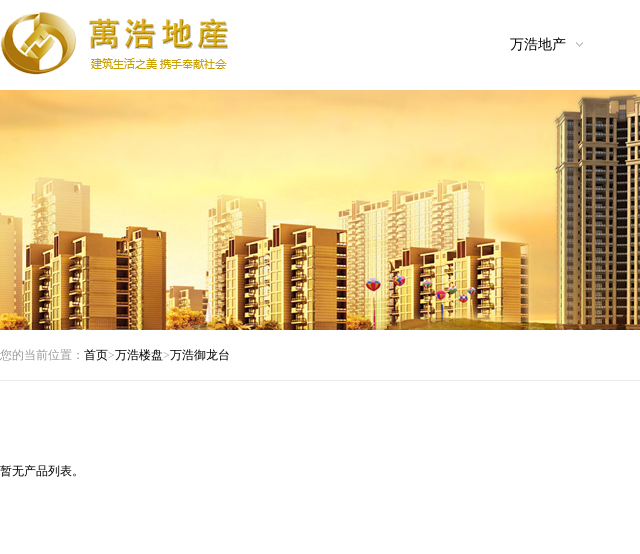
#include <cairo.h>
#include <math.h>
#include <stddef.h>


static void ink(cairo_t *ctx, unsigned color) {
    cairo_set_source_rgb(ctx, (color >> 16) / 255.0, (color >> 8 & 255) / 255.0, (color & 255) / 255.0);
}

static void paste(cairo_t *ctx, const char *path, double x, double y, double w, double h) {
    cairo_surface_t *image = cairo_image_surface_create_from_png(path);
    cairo_save(ctx);
    cairo_set_source_surface(ctx, image, x, y);
    cairo_rectangle(ctx, x, y, w, h);
    cairo_fill(ctx);
    cairo_restore(ctx);
    cairo_surface_destroy(image);
}

int main(void) {
    cairo_surface_t *surface = cairo_image_surface_create(CAIRO_FORMAT_RGB24, 640, 554);
    cairo_t *ctx = cairo_create(surface);
    cairo_font_options_t *options = cairo_font_options_create();
    cairo_font_options_set_hint_metrics(options, CAIRO_HINT_METRICS_OFF);
    cairo_font_options_set_hint_style(options, CAIRO_HINT_STYLE_NONE);
    cairo_set_font_options(ctx, options);
    cairo_set_miter_limit(ctx, 4);
    ink(ctx, 0xFFFFFF);
    cairo_paint(ctx);
    paste(ctx, "media/1.png", 0, 12, 228, 63);
    cairo_select_font_face(ctx, "WenQuanYi Zen Hei Medium", CAIRO_FONT_SLANT_NORMAL, CAIRO_FONT_WEIGHT_NORMAL);
    cairo_set_font_size(ctx, 14);
    ink(ctx, 0x000000);
    cairo_move_to(ctx, 510, 49);
    cairo_show_text(ctx, "万浩地产");
    paste(ctx, "media/2.png", 576, 42, 7, 5);
    paste(ctx, "media/3.png", 0, 90, 640, 240);
    ink(ctx, 0xEBEBEB);
    cairo_rectangle(ctx, 0, 380, 640, 1);
    cairo_fill(ctx);
    cairo_set_font_size(ctx, 12);
    ink(ctx, 0x999999);
    cairo_move_to(ctx, 0, 359);
    cairo_show_text(ctx, "您的当前位置：");
    ink(ctx, 0x000000);
    cairo_move_to(ctx, 84, 359);
    cairo_show_text(ctx, "首页");
    cairo_select_font_face(ctx, "Liberation Serif", CAIRO_FONT_SLANT_NORMAL, CAIRO_FONT_WEIGHT_NORMAL);
    ink(ctx, 0x999999);
    cairo_move_to(ctx, 108, 359);
    cairo_show_text(ctx, ">");
    cairo_select_font_face(ctx, "WenQuanYi Zen Hei Medium", CAIRO_FONT_SLANT_NORMAL, CAIRO_FONT_WEIGHT_NORMAL);
    ink(ctx, 0x000000);
    cairo_move_to(ctx, 115, 359);
    cairo_show_text(ctx, "万浩楼盘");
    cairo_select_font_face(ctx, "Liberation Serif", CAIRO_FONT_SLANT_NORMAL, CAIRO_FONT_WEIGHT_NORMAL);
    ink(ctx, 0x999999);
    cairo_move_to(ctx, 163, 359);
    cairo_show_text(ctx, ">");
    cairo_select_font_face(ctx, "WenQuanYi Zen Hei Medium", CAIRO_FONT_SLANT_NORMAL, CAIRO_FONT_WEIGHT_NORMAL);
    ink(ctx, 0x000000);
    cairo_move_to(ctx, 170, 359);
    cairo_show_text(ctx, "万浩御龙台");
    cairo_move_to(ctx, 0, 475);
    cairo_show_text(ctx, "暂无产品列表。");
    cairo_surface_write_to_png(surface, "image.png");
    cairo_font_options_destroy(options);
    cairo_destroy(ctx);
    cairo_surface_destroy(surface);
    return 0;
}
